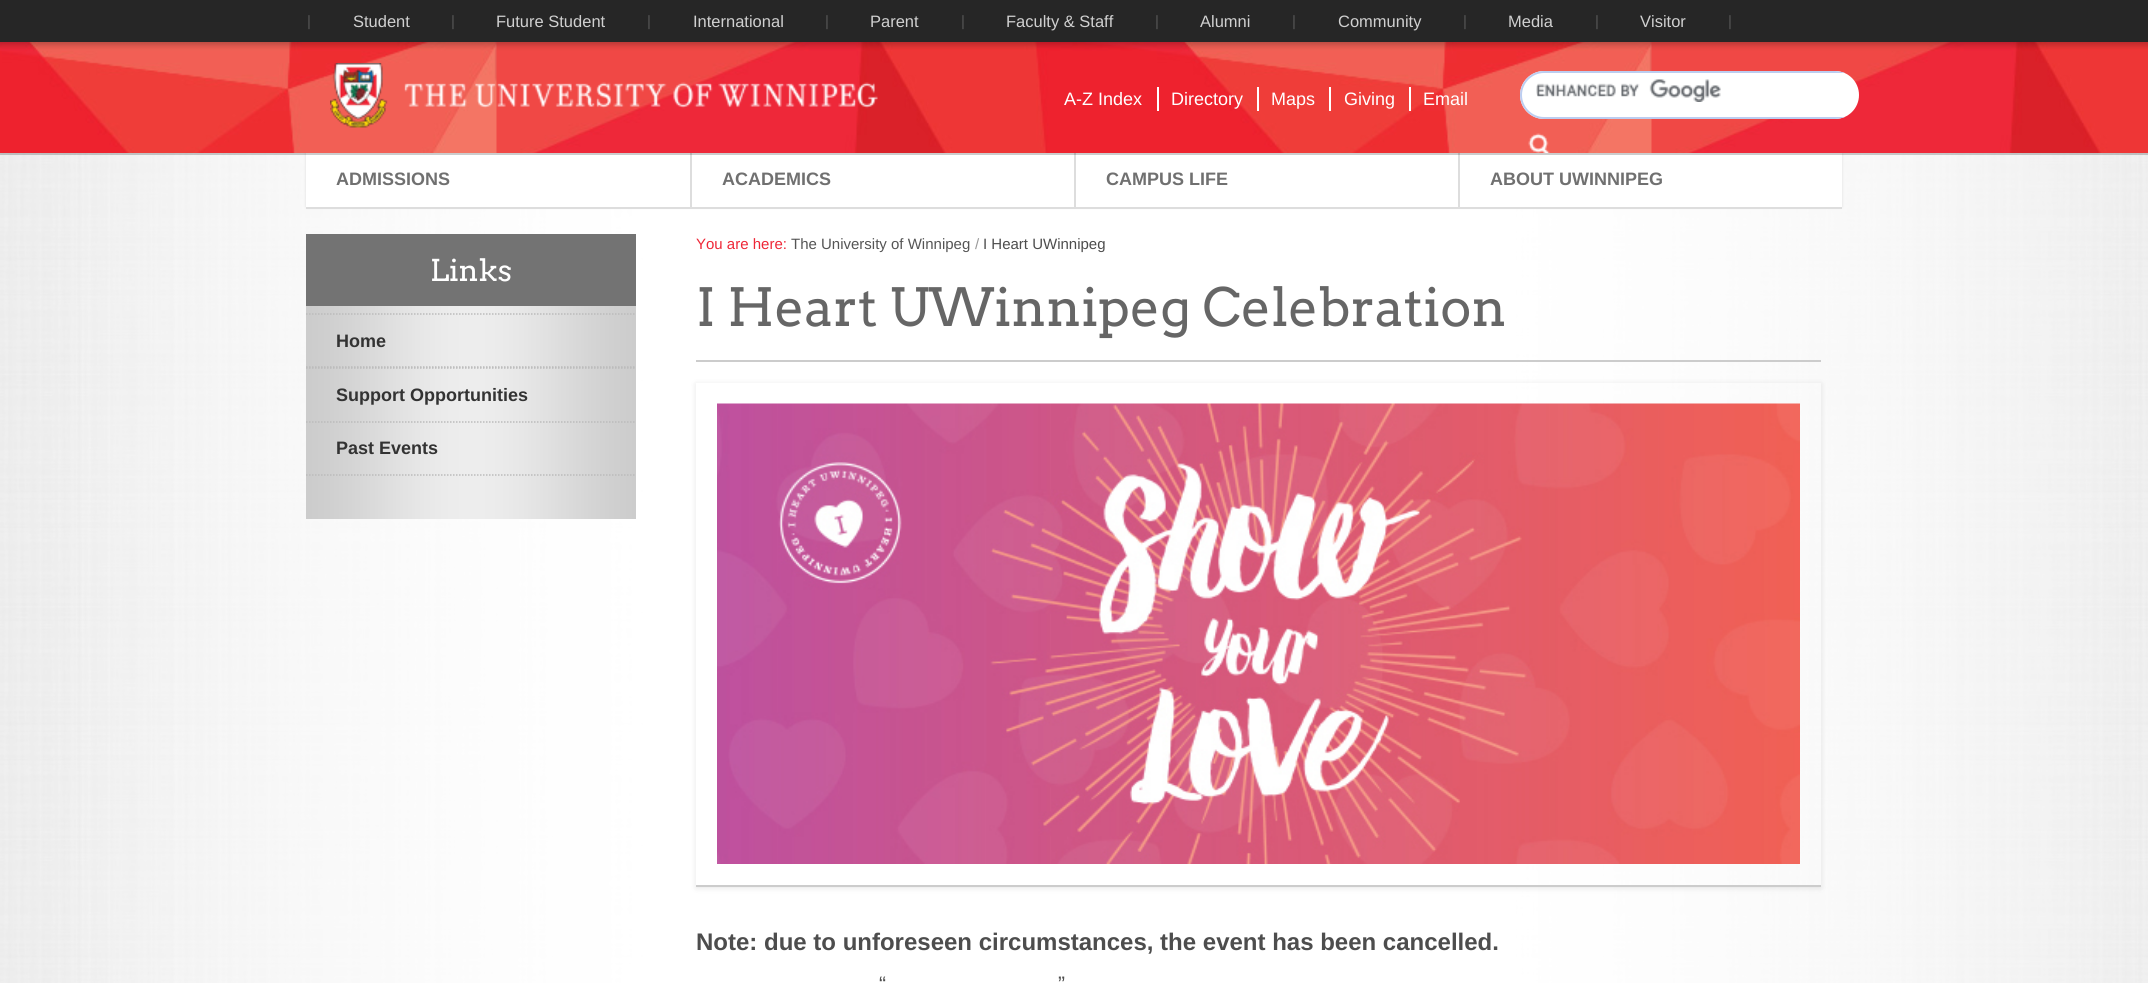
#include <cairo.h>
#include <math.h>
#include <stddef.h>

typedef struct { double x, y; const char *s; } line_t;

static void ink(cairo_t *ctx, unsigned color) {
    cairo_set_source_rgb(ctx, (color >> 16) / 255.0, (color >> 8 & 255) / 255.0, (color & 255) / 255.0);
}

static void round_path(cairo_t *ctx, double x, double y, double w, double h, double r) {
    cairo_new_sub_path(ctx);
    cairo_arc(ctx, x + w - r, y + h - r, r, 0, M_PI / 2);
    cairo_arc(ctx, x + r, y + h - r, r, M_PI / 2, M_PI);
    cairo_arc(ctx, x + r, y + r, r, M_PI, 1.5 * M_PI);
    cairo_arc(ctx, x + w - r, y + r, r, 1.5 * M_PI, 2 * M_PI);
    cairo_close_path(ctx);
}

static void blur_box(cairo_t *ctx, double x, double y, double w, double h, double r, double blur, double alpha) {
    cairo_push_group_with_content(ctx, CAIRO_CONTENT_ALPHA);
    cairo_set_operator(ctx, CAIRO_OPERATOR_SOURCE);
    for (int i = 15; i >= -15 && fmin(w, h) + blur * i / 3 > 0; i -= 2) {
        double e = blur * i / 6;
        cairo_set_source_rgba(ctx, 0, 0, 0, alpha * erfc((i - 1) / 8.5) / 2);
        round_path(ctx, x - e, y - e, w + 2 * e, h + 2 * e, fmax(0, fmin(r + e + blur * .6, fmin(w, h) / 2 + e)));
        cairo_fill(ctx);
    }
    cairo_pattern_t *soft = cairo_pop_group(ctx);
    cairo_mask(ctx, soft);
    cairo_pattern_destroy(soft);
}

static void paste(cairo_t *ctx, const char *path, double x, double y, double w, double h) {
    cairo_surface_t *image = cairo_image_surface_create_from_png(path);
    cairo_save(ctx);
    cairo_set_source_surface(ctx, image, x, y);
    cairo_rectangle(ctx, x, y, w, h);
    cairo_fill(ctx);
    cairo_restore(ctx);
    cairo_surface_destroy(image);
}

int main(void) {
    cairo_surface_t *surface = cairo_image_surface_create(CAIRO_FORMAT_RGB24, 2148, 983);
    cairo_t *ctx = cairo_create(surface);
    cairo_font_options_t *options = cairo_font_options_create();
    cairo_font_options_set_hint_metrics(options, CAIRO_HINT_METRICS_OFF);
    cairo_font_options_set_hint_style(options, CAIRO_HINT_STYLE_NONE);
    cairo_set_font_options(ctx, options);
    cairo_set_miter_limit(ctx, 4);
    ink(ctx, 0xFFFFFF);
    cairo_paint(ctx);
    paste(ctx, "media/1.png", 0, 153, 2148, 830);
    ink(ctx, 0x000000);
    blur_box(ctx, 306, 153, 1536, 54, 0, 1.5, 0.1);
    ink(ctx, 0xFFFFFF);
    cairo_rectangle(ctx, 306, 153, 384, 54);
    cairo_fill(ctx);
    cairo_rectangle(ctx, 692, 153, 382, 54);
    cairo_fill(ctx);
    ink(ctx, 0xDDDDDD);
    cairo_rectangle(ctx, 306, 207, 1536, 2);
    cairo_fill(ctx);
    cairo_rectangle(ctx, 690, 153, 2, 56);
    cairo_fill(ctx);
    ink(ctx, 0xFFFFFF);
    cairo_rectangle(ctx, 1076, 153, 382, 54);
    cairo_fill(ctx);
    ink(ctx, 0xDDDDDD);
    cairo_rectangle(ctx, 1074, 153, 2, 56);
    cairo_fill(ctx);
    ink(ctx, 0xFFFFFF);
    cairo_rectangle(ctx, 1460, 153, 382, 54);
    cairo_fill(ctx);
    ink(ctx, 0xDDDDDD);
    cairo_rectangle(ctx, 1458, 153, 2, 56);
    cairo_fill(ctx);
    cairo_set_source_rgba(ctx, 0, 0, 0, 0.2);
    cairo_rectangle(ctx, 0, 153, 2148, 2);
    cairo_fill(ctx);
    paste(ctx, "media/2.png", 0, 42, 2148, 111);
    ink(ctx, 0x262626);
    cairo_rectangle(ctx, 0, 0, 2148, 42);
    cairo_fill(ctx);
    cairo_select_font_face(ctx, "Liberation Sans", CAIRO_FONT_SLANT_NORMAL, CAIRO_FONT_WEIGHT_NORMAL);
    cairo_set_font_size(ctx, 15);
    ink(ctx, 0x555555);
    cairo_move_to(ctx, 307, 26);
    cairo_show_text(ctx, "|");
    cairo_set_font_size(ctx, 16.5);
    ink(ctx, 0xD0D0D0);
    cairo_move_to(ctx, 353, 27);
    cairo_show_text(ctx, "Student");
    cairo_set_font_size(ctx, 15);
    ink(ctx, 0x555555);
    cairo_move_to(ctx, 451, 26);
    cairo_show_text(ctx, "|");
    cairo_set_font_size(ctx, 16.5);
    ink(ctx, 0xD0D0D0);
    cairo_move_to(ctx, 496, 27);
    cairo_show_text(ctx, "Future Student");
    cairo_set_font_size(ctx, 15);
    ink(ctx, 0x555555);
    cairo_move_to(ctx, 647, 26);
    cairo_show_text(ctx, "|");
    cairo_set_font_size(ctx, 16.5);
    ink(ctx, 0xD0D0D0);
    cairo_move_to(ctx, 693, 27);
    cairo_show_text(ctx, "International");
    cairo_set_font_size(ctx, 15);
    ink(ctx, 0x555555);
    cairo_move_to(ctx, 825, 26);
    cairo_show_text(ctx, "|");
    cairo_set_font_size(ctx, 16.5);
    ink(ctx, 0xD0D0D0);
    cairo_move_to(ctx, 870, 27);
    cairo_show_text(ctx, "Parent");
    cairo_set_font_size(ctx, 15);
    ink(ctx, 0x555555);
    cairo_move_to(ctx, 961, 26);
    cairo_show_text(ctx, "|");
    cairo_set_font_size(ctx, 16.5);
    ink(ctx, 0xD0D0D0);
    cairo_move_to(ctx, 1006, 27);
    cairo_show_text(ctx, "Faculty & Staff");
    cairo_set_font_size(ctx, 15);
    ink(ctx, 0x555555);
    cairo_move_to(ctx, 1155, 26);
    cairo_show_text(ctx, "|");
    cairo_set_font_size(ctx, 16.5);
    ink(ctx, 0xD0D0D0);
    cairo_move_to(ctx, 1200, 27);
    cairo_show_text(ctx, "Alumni");
    cairo_set_font_size(ctx, 15);
    ink(ctx, 0x555555);
    cairo_move_to(ctx, 1292, 26);
    cairo_show_text(ctx, "|");
    cairo_set_font_size(ctx, 16.5);
    ink(ctx, 0xD0D0D0);
    cairo_move_to(ctx, 1338, 27);
    cairo_show_text(ctx, "Community");
    cairo_set_font_size(ctx, 15);
    ink(ctx, 0x555555);
    cairo_move_to(ctx, 1463, 26);
    cairo_show_text(ctx, "|");
    cairo_set_font_size(ctx, 16.5);
    ink(ctx, 0xD0D0D0);
    cairo_move_to(ctx, 1508, 27);
    cairo_show_text(ctx, "Media");
    cairo_set_font_size(ctx, 15);
    ink(ctx, 0x555555);
    cairo_move_to(ctx, 1595, 26);
    cairo_show_text(ctx, "|");
    cairo_set_font_size(ctx, 16.5);
    ink(ctx, 0xD0D0D0);
    cairo_move_to(ctx, 1640, 27);
    cairo_show_text(ctx, "Visitor");
    cairo_set_font_size(ctx, 15);
    ink(ctx, 0x555555);
    cairo_move_to(ctx, 1728, 26);
    cairo_show_text(ctx, "|");
    paste(ctx, "media/3.png", 330, 63, 548, 65);
    cairo_set_font_size(ctx, 18);
    ink(ctx, 0xFFFFFF);
    cairo_move_to(ctx, 1064, 105);
    cairo_show_text(ctx, "A-Z Index");
    cairo_rectangle(ctx, 1157, 87, 2, 24);
    cairo_fill(ctx);
    cairo_move_to(ctx, 1171, 105);
    cairo_show_text(ctx, "Directory");
    cairo_rectangle(ctx, 1257, 87, 2, 24);
    cairo_fill(ctx);
    cairo_move_to(ctx, 1271, 105);
    cairo_show_text(ctx, "Maps");
    cairo_rectangle(ctx, 1329, 87, 2, 24);
    cairo_fill(ctx);
    cairo_move_to(ctx, 1344, 105);
    cairo_show_text(ctx, "Giving");
    cairo_rectangle(ctx, 1409, 87, 2, 24);
    cairo_fill(ctx);
    cairo_move_to(ctx, 1423, 105);
    cairo_show_text(ctx, "Email");
    cairo_save(ctx);
    round_path(ctx, 1520, 71, 339, 48, 24);
    cairo_clip(ctx);
    round_path(ctx, 1520, 71, 357, 48, 24);
    cairo_fill(ctx);
    cairo_restore(ctx);
    ink(ctx, 0xBCCDF0);
    cairo_new_path(ctx);
    cairo_move_to(ctx, 1544, 71);
    cairo_curve_to(ctx, 1531, 71, 1520, 82, 1520, 95);
    cairo_curve_to(ctx, 1520, 108, 1531, 119, 1544, 119);
    cairo_line_to(ctx, 1835, 119);
    cairo_curve_to(ctx, 1838, 119, 1842, 118, 1845, 117);
    cairo_line_to(ctx, 1544, 117);
    cairo_curve_to(ctx, 1532, 117, 1522, 107, 1522, 95);
    cairo_curve_to(ctx, 1522, 83, 1532, 73, 1544, 73);
    cairo_line_to(ctx, 1845, 73);
    cairo_curve_to(ctx, 1842, 72, 1838, 71, 1835, 71);
    cairo_close_path(ctx);
    cairo_fill(ctx);
    paste(ctx, "media/4.png", 1536, 79, 185, 23);
    paste(ctx, "media/5.png", 1528, 133, 22, 20);
    cairo_select_font_face(ctx, "Liberation Sans", CAIRO_FONT_SLANT_NORMAL, CAIRO_FONT_WEIGHT_BOLD);
    ink(ctx, 0x707070);
    {
        static const line_t items[] = {
            {336, 185, "ADMISSIONS"},
            {722, 185, "ACADEMICS"},
            {1106, 185, "CAMPUS LIFE"},
            {1490, 185, "ABOUT UWINNIPEG"},
        };
        for (size_t i = 0; i < sizeof items / sizeof *items; i++) {
            cairo_move_to(ctx, items[i].x, items[i].y);
            cairo_show_text(ctx, items[i].s);
        }
    }
    paste(ctx, "media/6.png", 306, 306, 330, 213);
    ink(ctx, 0x737373);
    cairo_rectangle(ctx, 306, 234, 330, 72);
    cairo_fill(ctx);
    cairo_select_font_face(ctx, "Arvo", CAIRO_FONT_SLANT_NORMAL, CAIRO_FONT_WEIGHT_NORMAL);
    cairo_set_font_size(ctx, 30);
    ink(ctx, 0xFFFFFF);
    cairo_move_to(ctx, 430, 281);
    cairo_show_text(ctx, "Links");
    cairo_new_path(ctx);
    cairo_move_to(ctx, 306, 314);
    cairo_line_to(ctx, 636, 314);
    ink(ctx, 0xBBBBBB);
    cairo_set_line_width(ctx, 1.5);
    cairo_set_dash(ctx, (double[]){1.5, 1.5}, 2, 0);
    cairo_stroke(ctx);
    cairo_new_path(ctx);
    cairo_move_to(ctx, 306, 367);
    cairo_line_to(ctx, 636, 367);
    cairo_stroke(ctx);
    cairo_select_font_face(ctx, "Liberation Sans", CAIRO_FONT_SLANT_NORMAL, CAIRO_FONT_WEIGHT_BOLD);
    cairo_set_font_size(ctx, 18);
    ink(ctx, 0x333333);
    cairo_move_to(ctx, 336, 347);
    cairo_show_text(ctx, "Home");
    cairo_new_path(ctx);
    cairo_move_to(ctx, 306, 368);
    cairo_line_to(ctx, 636, 368);
    ink(ctx, 0xBBBBBB);
    cairo_stroke(ctx);
    cairo_new_path(ctx);
    cairo_move_to(ctx, 306, 422);
    cairo_line_to(ctx, 636, 422);
    cairo_stroke(ctx);
    ink(ctx, 0x333333);
    cairo_move_to(ctx, 336, 401);
    cairo_show_text(ctx, "Support Opportunities");
    cairo_new_path(ctx);
    cairo_move_to(ctx, 306, 475);
    cairo_line_to(ctx, 636, 475);
    ink(ctx, 0xBBBBBB);
    cairo_stroke(ctx);
    ink(ctx, 0x333333);
    cairo_move_to(ctx, 336, 454);
    cairo_show_text(ctx, "Past Events");
    cairo_select_font_face(ctx, "Liberation Sans", CAIRO_FONT_SLANT_NORMAL, CAIRO_FONT_WEIGHT_NORMAL);
    cairo_set_font_size(ctx, 15);
    ink(ctx, 0xEE2737);
    cairo_move_to(ctx, 696, 249);
    cairo_show_text(ctx, "You are here:");
    ink(ctx, 0x555555);
    cairo_move_to(ctx, 791, 249);
    cairo_show_text(ctx, "The University of Winnipeg");
    ink(ctx, 0x999999);
    cairo_move_to(ctx, 975, 249);
    cairo_show_text(ctx, "/");
    ink(ctx, 0x4D4D4D);
    cairo_move_to(ctx, 983, 249);
    cairo_show_text(ctx, "I Heart UWinnipeg");
    cairo_select_font_face(ctx, "Arvo", CAIRO_FONT_SLANT_NORMAL, CAIRO_FONT_WEIGHT_NORMAL);
    cairo_set_font_size(ctx, 52.5);
    ink(ctx, 0x666666);
    cairo_move_to(ctx, 696, 326);
    cairo_show_text(ctx, "I Heart UWinnipeg Celebration");
    ink(ctx, 0xCCCCCC);
    cairo_rectangle(ctx, 696, 360, 1125, 2);
    cairo_fill(ctx);
    cairo_save(ctx);
    cairo_set_fill_rule(ctx, CAIRO_FILL_RULE_EVEN_ODD);
    cairo_new_path(ctx);
    cairo_move_to(ctx, 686, 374);
    cairo_line_to(ctx, 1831, 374);
    cairo_line_to(ctx, 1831, 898);
    cairo_line_to(ctx, 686, 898);
    cairo_close_path(ctx);
    cairo_move_to(ctx, 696, 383);
    cairo_line_to(ctx, 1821, 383);
    cairo_line_to(ctx, 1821, 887);
    cairo_line_to(ctx, 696, 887);
    cairo_close_path(ctx);
    cairo_clip(ctx);
    ink(ctx, 0x000000);
    blur_box(ctx, 696, 384, 1125, 504, 0, 3, 0.1);
    cairo_restore(ctx);
    cairo_rectangle(ctx, 696, 885, 1125, 2);
    cairo_fill(ctx);
    paste(ctx, "media/7.png", 717, 403, 1083, 461);
    cairo_select_font_face(ctx, "Liberation Sans", CAIRO_FONT_SLANT_NORMAL, CAIRO_FONT_WEIGHT_BOLD);
    cairo_set_font_size(ctx, 24);
    ink(ctx, 0x4D4D4D);
    cairo_move_to(ctx, 696, 950);
    cairo_show_text(ctx, "Note: due to unforeseen circumstances, the event has been cancelled.");
    cairo_select_font_face(ctx, "Liberation Sans", CAIRO_FONT_SLANT_NORMAL, CAIRO_FONT_WEIGHT_NORMAL);
    cairo_set_font_size(ctx, 21);
    cairo_move_to(ctx, 879, 991);
    cairo_show_text(ctx, "“");
    cairo_move_to(ctx, 1058, 991);
    cairo_show_text(ctx, "”");
    cairo_surface_write_to_png(surface, "image.png");
    cairo_font_options_destroy(options);
    cairo_destroy(ctx);
    cairo_surface_destroy(surface);
    return 0;
}
